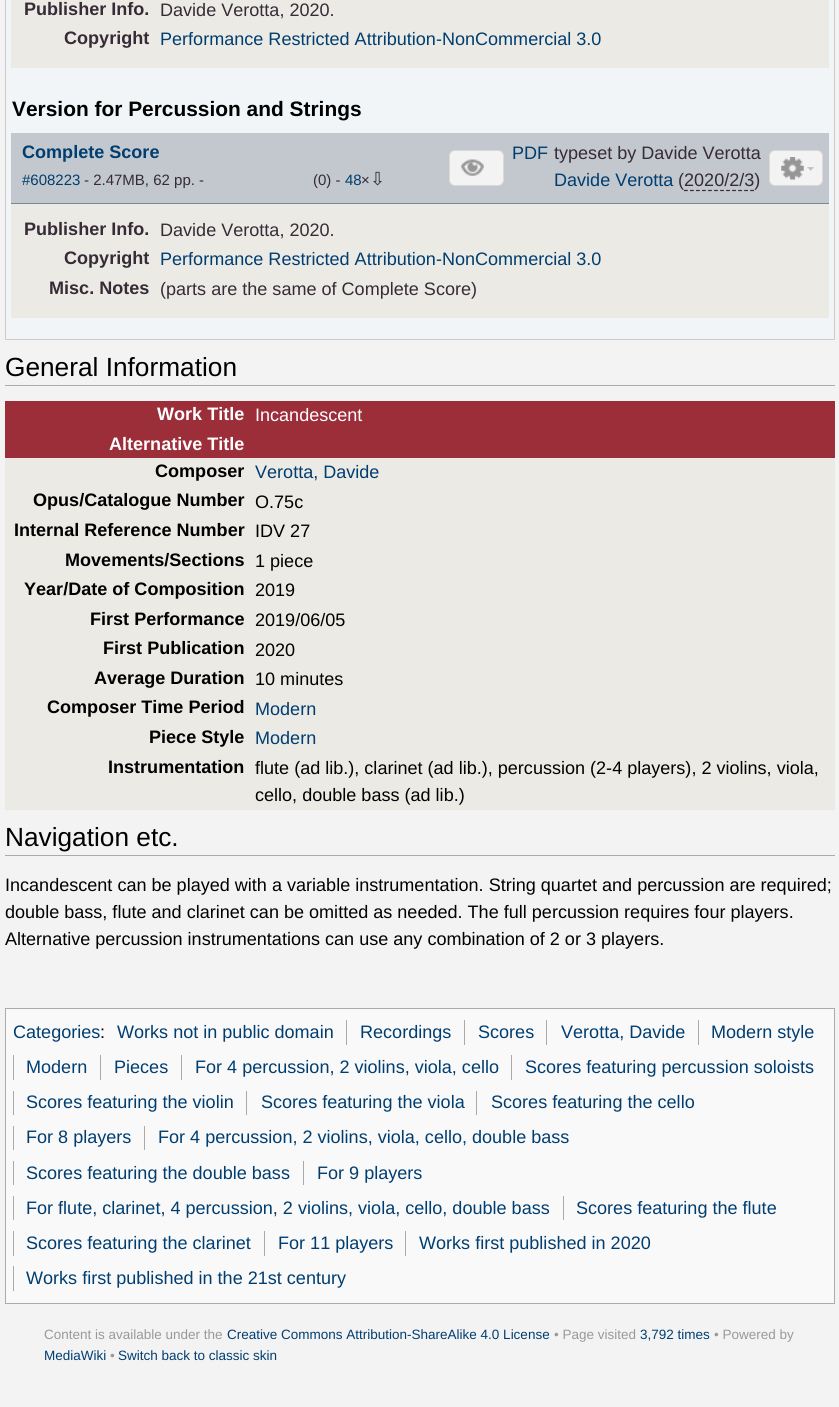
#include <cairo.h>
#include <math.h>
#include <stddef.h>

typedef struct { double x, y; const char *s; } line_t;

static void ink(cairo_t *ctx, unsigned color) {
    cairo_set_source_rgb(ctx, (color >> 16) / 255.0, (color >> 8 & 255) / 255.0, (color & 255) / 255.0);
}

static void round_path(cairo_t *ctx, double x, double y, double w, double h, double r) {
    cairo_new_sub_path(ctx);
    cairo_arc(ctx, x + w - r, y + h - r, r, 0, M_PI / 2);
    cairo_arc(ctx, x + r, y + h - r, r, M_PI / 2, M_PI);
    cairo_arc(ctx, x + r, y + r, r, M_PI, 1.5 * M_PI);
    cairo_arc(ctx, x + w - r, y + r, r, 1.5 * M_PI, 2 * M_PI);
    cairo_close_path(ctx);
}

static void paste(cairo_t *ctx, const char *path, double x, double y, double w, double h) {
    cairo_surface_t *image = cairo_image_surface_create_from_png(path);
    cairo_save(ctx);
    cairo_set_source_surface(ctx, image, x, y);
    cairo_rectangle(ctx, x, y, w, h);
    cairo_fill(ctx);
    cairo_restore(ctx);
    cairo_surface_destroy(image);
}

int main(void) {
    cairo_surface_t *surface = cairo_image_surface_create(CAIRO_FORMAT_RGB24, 839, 1407);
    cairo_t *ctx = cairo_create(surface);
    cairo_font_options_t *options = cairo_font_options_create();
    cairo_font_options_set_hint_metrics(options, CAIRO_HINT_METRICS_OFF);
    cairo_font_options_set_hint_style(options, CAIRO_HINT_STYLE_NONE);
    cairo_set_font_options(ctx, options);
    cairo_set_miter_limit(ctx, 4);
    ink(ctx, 0xF3F3F3);
    cairo_paint(ctx);
    ink(ctx, 0xF2F5F7);
    cairo_rectangle(ctx, 5.5, -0.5, 829, 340);
    cairo_fill_preserve(ctx);
    ink(ctx, 0xCCCCCC);
    cairo_set_line_width(ctx, 1);
    cairo_stroke(ctx);
    ink(ctx, 0xEBEAE4);
    cairo_rectangle(ctx, 11, 0, 818, 68);
    cairo_fill(ctx);
    cairo_select_font_face(ctx, "Liberation Sans", CAIRO_FONT_SLANT_NORMAL, CAIRO_FONT_WEIGHT_BOLD);
    cairo_set_font_size(ctx, 18.05);
    ink(ctx, 0x362B36);
    cairo_move_to(ctx, 24, 15);
    cairo_show_text(ctx, "Publisher Info.");
    cairo_select_font_face(ctx, "Liberation Sans", CAIRO_FONT_SLANT_NORMAL, CAIRO_FONT_WEIGHT_NORMAL);
    cairo_move_to(ctx, 160, 16);
    cairo_show_text(ctx, "Davide Verotta, 2020.");
    cairo_select_font_face(ctx, "Liberation Sans", CAIRO_FONT_SLANT_NORMAL, CAIRO_FONT_WEIGHT_BOLD);
    cairo_move_to(ctx, 64, 44);
    cairo_show_text(ctx, "Copyright");
    cairo_select_font_face(ctx, "Liberation Sans", CAIRO_FONT_SLANT_NORMAL, CAIRO_FONT_WEIGHT_NORMAL);
    ink(ctx, 0x003D70);
    cairo_move_to(ctx, 160, 45);
    cairo_show_text(ctx, "Performance Restricted Attribution-NonCommercial 3.0");
    cairo_select_font_face(ctx, "Liberation Sans", CAIRO_FONT_SLANT_NORMAL, CAIRO_FONT_WEIGHT_BOLD);
    cairo_set_font_size(ctx, 20.9);
    ink(ctx, 0x000000);
    cairo_move_to(ctx, 12, 116);
    cairo_show_text(ctx, "Version for Percussion and Strings");
    ink(ctx, 0xC2C8CD);
    cairo_rectangle(ctx, 11, 133, 818, 70);
    cairo_fill(ctx);
    ink(ctx, 0x788791);
    cairo_rectangle(ctx, 11, 203, 818, 1);
    cairo_fill(ctx);
    cairo_set_font_size(ctx, 18.05);
    ink(ctx, 0x003D70);
    cairo_move_to(ctx, 22, 158);
    cairo_show_text(ctx, "Complete Score");
    cairo_select_font_face(ctx, "Liberation Sans", CAIRO_FONT_SLANT_NORMAL, CAIRO_FONT_WEIGHT_NORMAL);
    cairo_set_font_size(ctx, 15);
    cairo_move_to(ctx, 22, 185);
    cairo_show_text(ctx, "#608223");
    ink(ctx, 0x362B36);
    cairo_move_to(ctx, 84, 185);
    cairo_show_text(ctx, "- 2.47MB, 62 pp. -");
    cairo_move_to(ctx, 313, 185);
    cairo_show_text(ctx, "(0) -");
    ink(ctx, 0x003D70);
    cairo_move_to(ctx, 345, 185);
    cairo_show_text(ctx, "48");
    ink(ctx, 0x362B36);
    cairo_move_to(ctx, 361, 185);
    cairo_show_text(ctx, "×");
    cairo_select_font_face(ctx, "DejaVu Sans", CAIRO_FONT_SLANT_NORMAL, CAIRO_FONT_WEIGHT_NORMAL);
    cairo_set_font_size(ctx, 18.05);
    cairo_move_to(ctx, 370, 185);
    cairo_show_text(ctx, "⇩");
    ink(ctx, 0xF3F3F3);
    round_path(ctx, 449.5, 150.5, 54, 35, 5.5);
    cairo_fill_preserve(ctx);
    ink(ctx, 0xD9D9D9);
    cairo_stroke(ctx);
    paste(ctx, "media/1.png", 461, 159, 23, 17);
    cairo_select_font_face(ctx, "Liberation Sans", CAIRO_FONT_SLANT_NORMAL, CAIRO_FONT_WEIGHT_NORMAL);
    ink(ctx, 0x003D70);
    cairo_move_to(ctx, 512, 159);
    cairo_show_text(ctx, "PDF");
    ink(ctx, 0x362B36);
    cairo_move_to(ctx, 554, 159);
    cairo_show_text(ctx, "typeset by Davide Verotta");
    ink(ctx, 0x003D70);
    cairo_move_to(ctx, 554, 186);
    cairo_show_text(ctx, "Davide Verotta");
    ink(ctx, 0x362B36);
    cairo_move_to(ctx, 678, 186);
    cairo_show_text(ctx, "(2020/2/3)");
    cairo_new_path(ctx);
    cairo_move_to(ctx, 684, 190.5);
    cairo_line_to(ctx, 754, 190.5);
    cairo_set_line_width(ctx, 1.2);
    cairo_set_dash(ctx, (double[]){3.75, 2.27}, 2, 0);
    cairo_stroke(ctx);
    ink(ctx, 0xF3F3F3);
    round_path(ctx, 769.5, 150.5, 53, 35, 5.5);
    cairo_fill_preserve(ctx);
    ink(ctx, 0xD9D9D9);
    cairo_set_line_width(ctx, 1);
    cairo_set_dash(ctx, NULL, 0, 0);
    cairo_stroke(ctx);
    paste(ctx, "media/2.png", 781, 157, 23, 23);
    paste(ctx, "media/3.png", 807, 167, 7, 4);
    ink(ctx, 0xEBEAE4);
    cairo_rectangle(ctx, 11, 204, 818, 114);
    cairo_fill(ctx);
    cairo_select_font_face(ctx, "Liberation Sans", CAIRO_FONT_SLANT_NORMAL, CAIRO_FONT_WEIGHT_BOLD);
    ink(ctx, 0x362B36);
    cairo_move_to(ctx, 24, 235);
    cairo_show_text(ctx, "Publisher Info.");
    cairo_select_font_face(ctx, "Liberation Sans", CAIRO_FONT_SLANT_NORMAL, CAIRO_FONT_WEIGHT_NORMAL);
    cairo_move_to(ctx, 160, 236);
    cairo_show_text(ctx, "Davide Verotta, 2020.");
    cairo_select_font_face(ctx, "Liberation Sans", CAIRO_FONT_SLANT_NORMAL, CAIRO_FONT_WEIGHT_BOLD);
    cairo_move_to(ctx, 64, 264);
    cairo_show_text(ctx, "Copyright");
    cairo_select_font_face(ctx, "Liberation Sans", CAIRO_FONT_SLANT_NORMAL, CAIRO_FONT_WEIGHT_NORMAL);
    ink(ctx, 0x003D70);
    cairo_move_to(ctx, 160, 265);
    cairo_show_text(ctx, "Performance Restricted Attribution-NonCommercial 3.0");
    cairo_select_font_face(ctx, "Liberation Sans", CAIRO_FONT_SLANT_NORMAL, CAIRO_FONT_WEIGHT_BOLD);
    ink(ctx, 0x362B36);
    cairo_move_to(ctx, 49, 294);
    cairo_show_text(ctx, "Misc. Notes");
    cairo_select_font_face(ctx, "Liberation Sans", CAIRO_FONT_SLANT_NORMAL, CAIRO_FONT_WEIGHT_NORMAL);
    cairo_move_to(ctx, 160, 295);
    cairo_show_text(ctx, "(parts are the same of Complete Score)");
    ink(ctx, 0xAAAAAA);
    cairo_rectangle(ctx, 5, 385, 830, 1);
    cairo_fill(ctx);
    cairo_set_font_size(ctx, 26.25);
    ink(ctx, 0x000000);
    cairo_move_to(ctx, 5, 376);
    cairo_show_text(ctx, "General Information");
    ink(ctx, 0xEBEAE4);
    cairo_rectangle(ctx, 5, 458, 830, 352);
    cairo_fill(ctx);
    ink(ctx, 0x9C2E3A);
    cairo_rectangle(ctx, 5, 401, 830, 30);
    cairo_fill(ctx);
    cairo_select_font_face(ctx, "Liberation Sans", CAIRO_FONT_SLANT_NORMAL, CAIRO_FONT_WEIGHT_BOLD);
    cairo_set_font_size(ctx, 18.05);
    ink(ctx, 0xFFFFFF);
    cairo_move_to(ctx, 157, 420);
    cairo_show_text(ctx, "Work Title");
    cairo_select_font_face(ctx, "Liberation Sans", CAIRO_FONT_SLANT_NORMAL, CAIRO_FONT_WEIGHT_NORMAL);
    cairo_move_to(ctx, 255, 421);
    cairo_show_text(ctx, "Incandescent");
    ink(ctx, 0x9C2E3A);
    cairo_rectangle(ctx, 5, 431, 830, 27);
    cairo_fill(ctx);
    cairo_select_font_face(ctx, "Liberation Sans", CAIRO_FONT_SLANT_NORMAL, CAIRO_FONT_WEIGHT_BOLD);
    ink(ctx, 0xFFFFFF);
    cairo_move_to(ctx, 109, 450);
    cairo_show_text(ctx, "Alternative Title");
    ink(ctx, 0x000000);
    cairo_move_to(ctx, 155, 477);
    cairo_show_text(ctx, "Composer");
    cairo_select_font_face(ctx, "Liberation Sans", CAIRO_FONT_SLANT_NORMAL, CAIRO_FONT_WEIGHT_NORMAL);
    ink(ctx, 0x003D70);
    cairo_move_to(ctx, 255, 478);
    cairo_show_text(ctx, "Verotta, Davide");
    cairo_select_font_face(ctx, "Liberation Sans", CAIRO_FONT_SLANT_NORMAL, CAIRO_FONT_WEIGHT_BOLD);
    ink(ctx, 0x000000);
    cairo_move_to(ctx, 33, 506);
    cairo_show_text(ctx, "Opus/Catalogue Number");
    cairo_select_font_face(ctx, "Liberation Sans", CAIRO_FONT_SLANT_NORMAL, CAIRO_FONT_WEIGHT_NORMAL);
    cairo_move_to(ctx, 255, 508);
    cairo_show_text(ctx, "O.75c");
    cairo_select_font_face(ctx, "Liberation Sans", CAIRO_FONT_SLANT_NORMAL, CAIRO_FONT_WEIGHT_BOLD);
    cairo_move_to(ctx, 14, 536);
    cairo_show_text(ctx, "Internal Reference Number");
    cairo_select_font_face(ctx, "Liberation Sans", CAIRO_FONT_SLANT_NORMAL, CAIRO_FONT_WEIGHT_NORMAL);
    cairo_move_to(ctx, 255, 537);
    cairo_show_text(ctx, "IDV 27");
    cairo_select_font_face(ctx, "Liberation Sans", CAIRO_FONT_SLANT_NORMAL, CAIRO_FONT_WEIGHT_BOLD);
    cairo_move_to(ctx, 65, 566);
    cairo_show_text(ctx, "Movements/Sections");
    cairo_select_font_face(ctx, "Liberation Sans", CAIRO_FONT_SLANT_NORMAL, CAIRO_FONT_WEIGHT_NORMAL);
    cairo_move_to(ctx, 255, 567);
    cairo_show_text(ctx, "1 piece");
    cairo_select_font_face(ctx, "Liberation Sans", CAIRO_FONT_SLANT_NORMAL, CAIRO_FONT_WEIGHT_BOLD);
    cairo_move_to(ctx, 24, 595);
    cairo_show_text(ctx, "Year/Date of Composition");
    cairo_select_font_face(ctx, "Liberation Sans", CAIRO_FONT_SLANT_NORMAL, CAIRO_FONT_WEIGHT_NORMAL);
    cairo_move_to(ctx, 255, 596);
    cairo_show_text(ctx, "2019");
    cairo_select_font_face(ctx, "Liberation Sans", CAIRO_FONT_SLANT_NORMAL, CAIRO_FONT_WEIGHT_BOLD);
    cairo_move_to(ctx, 90, 625);
    cairo_show_text(ctx, "First Performance");
    cairo_select_font_face(ctx, "Liberation Sans", CAIRO_FONT_SLANT_NORMAL, CAIRO_FONT_WEIGHT_NORMAL);
    cairo_move_to(ctx, 255, 626);
    cairo_show_text(ctx, "2019/06/05");
    cairo_select_font_face(ctx, "Liberation Sans", CAIRO_FONT_SLANT_NORMAL, CAIRO_FONT_WEIGHT_BOLD);
    cairo_move_to(ctx, 103, 654);
    cairo_show_text(ctx, "First Publication");
    cairo_select_font_face(ctx, "Liberation Sans", CAIRO_FONT_SLANT_NORMAL, CAIRO_FONT_WEIGHT_NORMAL);
    cairo_move_to(ctx, 255, 656);
    cairo_show_text(ctx, "2020");
    cairo_select_font_face(ctx, "Liberation Sans", CAIRO_FONT_SLANT_NORMAL, CAIRO_FONT_WEIGHT_BOLD);
    cairo_move_to(ctx, 94, 684);
    cairo_show_text(ctx, "Average Duration");
    cairo_select_font_face(ctx, "Liberation Sans", CAIRO_FONT_SLANT_NORMAL, CAIRO_FONT_WEIGHT_NORMAL);
    cairo_move_to(ctx, 255, 685);
    cairo_show_text(ctx, "10 minutes");
    cairo_select_font_face(ctx, "Liberation Sans", CAIRO_FONT_SLANT_NORMAL, CAIRO_FONT_WEIGHT_BOLD);
    cairo_move_to(ctx, 47, 713);
    cairo_show_text(ctx, "Composer Time Period");
    cairo_select_font_face(ctx, "Liberation Sans", CAIRO_FONT_SLANT_NORMAL, CAIRO_FONT_WEIGHT_NORMAL);
    ink(ctx, 0x003D70);
    cairo_move_to(ctx, 255, 715);
    cairo_show_text(ctx, "Modern");
    cairo_select_font_face(ctx, "Liberation Sans", CAIRO_FONT_SLANT_NORMAL, CAIRO_FONT_WEIGHT_BOLD);
    ink(ctx, 0x000000);
    cairo_move_to(ctx, 149, 743);
    cairo_show_text(ctx, "Piece Style");
    cairo_select_font_face(ctx, "Liberation Sans", CAIRO_FONT_SLANT_NORMAL, CAIRO_FONT_WEIGHT_NORMAL);
    ink(ctx, 0x003D70);
    cairo_move_to(ctx, 255, 744);
    cairo_show_text(ctx, "Modern");
    cairo_select_font_face(ctx, "Liberation Sans", CAIRO_FONT_SLANT_NORMAL, CAIRO_FONT_WEIGHT_BOLD);
    ink(ctx, 0x000000);
    cairo_move_to(ctx, 108, 773);
    cairo_show_text(ctx, "Instrumentation");
    cairo_select_font_face(ctx, "Liberation Sans", CAIRO_FONT_SLANT_NORMAL, CAIRO_FONT_WEIGHT_NORMAL);
    cairo_move_to(ctx, 255, 774);
    cairo_show_text(ctx, "flute (ad lib.), clarinet (ad lib.), percussion (2-4 players), 2 violins, viola,");
    cairo_move_to(ctx, 255, 801);
    cairo_show_text(ctx, "cello, double bass (ad lib.)");
    ink(ctx, 0xAAAAAA);
    cairo_rectangle(ctx, 5, 855, 830, 1);
    cairo_fill(ctx);
    cairo_set_font_size(ctx, 26.25);
    ink(ctx, 0x000000);
    cairo_move_to(ctx, 5, 846);
    cairo_show_text(ctx, "Navigation etc.");
    cairo_set_font_size(ctx, 18.05);
    {
        static const line_t items[] = {
            {5, 891, "Incandescent can be played with a variable instrumentation. String quartet and percussion are required;"},
            {5, 918, "double bass, flute and clarinet can be omitted as needed. The full percussion requires four players."},
            {5, 945, "Alternative percussion instrumentations can use any combination of 2 or 3 players."},
        };
        for (size_t i = 0; i < sizeof items / sizeof *items; i++) {
            cairo_move_to(ctx, items[i].x, items[i].y);
            cairo_show_text(ctx, items[i].s);
        }
    }
    ink(ctx, 0xF9F9F9);
    cairo_rectangle(ctx, 5.5, 1008.5, 829, 295);
    cairo_fill_preserve(ctx);
    ink(ctx, 0xAAAAAA);
    cairo_stroke(ctx);
    ink(ctx, 0x003D70);
    cairo_move_to(ctx, 13, 1038);
    cairo_show_text(ctx, "Categories");
    cairo_move_to(ctx, 117, 1038);
    cairo_show_text(ctx, "Works not in public domain");
    ink(ctx, 0xAAAAAA);
    cairo_rectangle(ctx, 346, 1020, 1, 25);
    cairo_fill(ctx);
    ink(ctx, 0x003D70);
    cairo_move_to(ctx, 360, 1038);
    cairo_show_text(ctx, "Recordings");
    ink(ctx, 0xAAAAAA);
    cairo_rectangle(ctx, 464, 1020, 1, 25);
    cairo_fill(ctx);
    ink(ctx, 0x003D70);
    cairo_move_to(ctx, 478, 1038);
    cairo_show_text(ctx, "Scores");
    ink(ctx, 0xAAAAAA);
    cairo_rectangle(ctx, 546, 1020, 1, 25);
    cairo_fill(ctx);
    ink(ctx, 0x003D70);
    cairo_move_to(ctx, 561, 1038);
    cairo_show_text(ctx, "Verotta, Davide");
    ink(ctx, 0xAAAAAA);
    cairo_rectangle(ctx, 698, 1020, 1, 25);
    cairo_fill(ctx);
    ink(ctx, 0x003D70);
    cairo_move_to(ctx, 711, 1038);
    cairo_show_text(ctx, "Modern style");
    ink(ctx, 0xAAAAAA);
    cairo_rectangle(ctx, 13, 1055, 1, 25);
    cairo_fill(ctx);
    ink(ctx, 0x003D70);
    cairo_move_to(ctx, 26, 1073);
    cairo_show_text(ctx, "Modern");
    ink(ctx, 0xAAAAAA);
    cairo_rectangle(ctx, 100, 1055, 1, 25);
    cairo_fill(ctx);
    ink(ctx, 0x003D70);
    cairo_move_to(ctx, 114, 1073);
    cairo_show_text(ctx, "Pieces");
    ink(ctx, 0xAAAAAA);
    cairo_rectangle(ctx, 181, 1055, 1, 25);
    cairo_fill(ctx);
    ink(ctx, 0x003D70);
    cairo_move_to(ctx, 195, 1073);
    cairo_show_text(ctx, "For 4 percussion, 2 violins, viola, cello");
    ink(ctx, 0xAAAAAA);
    cairo_rectangle(ctx, 511, 1055, 1, 25);
    cairo_fill(ctx);
    ink(ctx, 0x003D70);
    cairo_move_to(ctx, 525, 1073);
    cairo_show_text(ctx, "Scores featuring percussion soloists");
    ink(ctx, 0xAAAAAA);
    cairo_rectangle(ctx, 13, 1091, 1, 24);
    cairo_fill(ctx);
    ink(ctx, 0x003D70);
    cairo_move_to(ctx, 26, 1108);
    cairo_show_text(ctx, "Scores featuring the violin");
    ink(ctx, 0xAAAAAA);
    cairo_rectangle(ctx, 246, 1091, 1, 24);
    cairo_fill(ctx);
    ink(ctx, 0x003D70);
    cairo_move_to(ctx, 261, 1108);
    cairo_show_text(ctx, "Scores featuring the viola");
    ink(ctx, 0xAAAAAA);
    cairo_rectangle(ctx, 476, 1091, 1, 24);
    cairo_fill(ctx);
    ink(ctx, 0x003D70);
    cairo_move_to(ctx, 491, 1108);
    cairo_show_text(ctx, "Scores featuring the cello");
    ink(ctx, 0xAAAAAA);
    cairo_rectangle(ctx, 13, 1126, 1, 24);
    cairo_fill(ctx);
    ink(ctx, 0x003D70);
    cairo_move_to(ctx, 26, 1143);
    cairo_show_text(ctx, "For 8 players");
    ink(ctx, 0xAAAAAA);
    cairo_rectangle(ctx, 144, 1126, 1, 24);
    cairo_fill(ctx);
    ink(ctx, 0x003D70);
    cairo_move_to(ctx, 158, 1143);
    cairo_show_text(ctx, "For 4 percussion, 2 violins, viola, cello, double bass");
    ink(ctx, 0xAAAAAA);
    cairo_rectangle(ctx, 13, 1161, 1, 24);
    cairo_fill(ctx);
    ink(ctx, 0x003D70);
    cairo_move_to(ctx, 26, 1179);
    cairo_show_text(ctx, "Scores featuring the double bass");
    ink(ctx, 0xAAAAAA);
    cairo_rectangle(ctx, 303, 1161, 1, 24);
    cairo_fill(ctx);
    ink(ctx, 0x003D70);
    cairo_move_to(ctx, 317, 1179);
    cairo_show_text(ctx, "For 9 players");
    ink(ctx, 0xAAAAAA);
    cairo_rectangle(ctx, 13, 1196, 1, 24);
    cairo_fill(ctx);
    ink(ctx, 0x003D70);
    cairo_move_to(ctx, 26, 1214);
    cairo_show_text(ctx, "For flute, clarinet, 4 percussion, 2 violins, viola, cello, double bass");
    ink(ctx, 0xAAAAAA);
    cairo_rectangle(ctx, 563, 1196, 1, 24);
    cairo_fill(ctx);
    ink(ctx, 0x003D70);
    cairo_move_to(ctx, 576, 1214);
    cairo_show_text(ctx, "Scores featuring the flute");
    ink(ctx, 0xAAAAAA);
    cairo_rectangle(ctx, 13, 1231, 1, 25);
    cairo_fill(ctx);
    ink(ctx, 0x003D70);
    cairo_move_to(ctx, 26, 1249);
    cairo_show_text(ctx, "Scores featuring the clarinet");
    ink(ctx, 0xAAAAAA);
    cairo_rectangle(ctx, 264, 1231, 1, 25);
    cairo_fill(ctx);
    ink(ctx, 0x003D70);
    cairo_move_to(ctx, 278, 1249);
    cairo_show_text(ctx, "For 11 players");
    ink(ctx, 0xAAAAAA);
    cairo_rectangle(ctx, 405, 1231, 1, 25);
    cairo_fill(ctx);
    ink(ctx, 0x003D70);
    cairo_move_to(ctx, 419, 1249);
    cairo_show_text(ctx, "Works first published in 2020");
    ink(ctx, 0xAAAAAA);
    cairo_rectangle(ctx, 13, 1266, 1, 25);
    cairo_fill(ctx);
    ink(ctx, 0x003D70);
    cairo_move_to(ctx, 26, 1284);
    cairo_show_text(ctx, "Works first published in the 21st century");
    ink(ctx, 0x000000);
    cairo_move_to(ctx, 100, 1038);
    cairo_show_text(ctx, ":");
    cairo_set_font_size(ctx, 13.5);
    ink(ctx, 0x999999);
    cairo_move_to(ctx, 44, 1339);
    cairo_show_text(ctx, "Content is available under the");
    ink(ctx, 0x003D70);
    cairo_move_to(ctx, 227, 1339);
    cairo_show_text(ctx, "Creative Commons Attribution-ShareAlike 4.0 License");
    ink(ctx, 0x999999);
    cairo_move_to(ctx, 554, 1339);
    cairo_show_text(ctx, "• Page visited");
    ink(ctx, 0x003D70);
    cairo_move_to(ctx, 640, 1339);
    cairo_show_text(ctx, "3,792 times");
    ink(ctx, 0x999999);
    cairo_move_to(ctx, 714, 1339);
    cairo_show_text(ctx, "• Powered by");
    ink(ctx, 0x003D70);
    cairo_move_to(ctx, 44, 1360);
    cairo_show_text(ctx, "MediaWiki");
    ink(ctx, 0x999999);
    cairo_move_to(ctx, 110, 1360);
    cairo_show_text(ctx, "•");
    ink(ctx, 0x003D70);
    cairo_move_to(ctx, 118, 1360);
    cairo_show_text(ctx, "Switch back to classic skin");
    cairo_surface_write_to_png(surface, "image.png");
    cairo_font_options_destroy(options);
    cairo_destroy(ctx);
    cairo_surface_destroy(surface);
    return 0;
}
